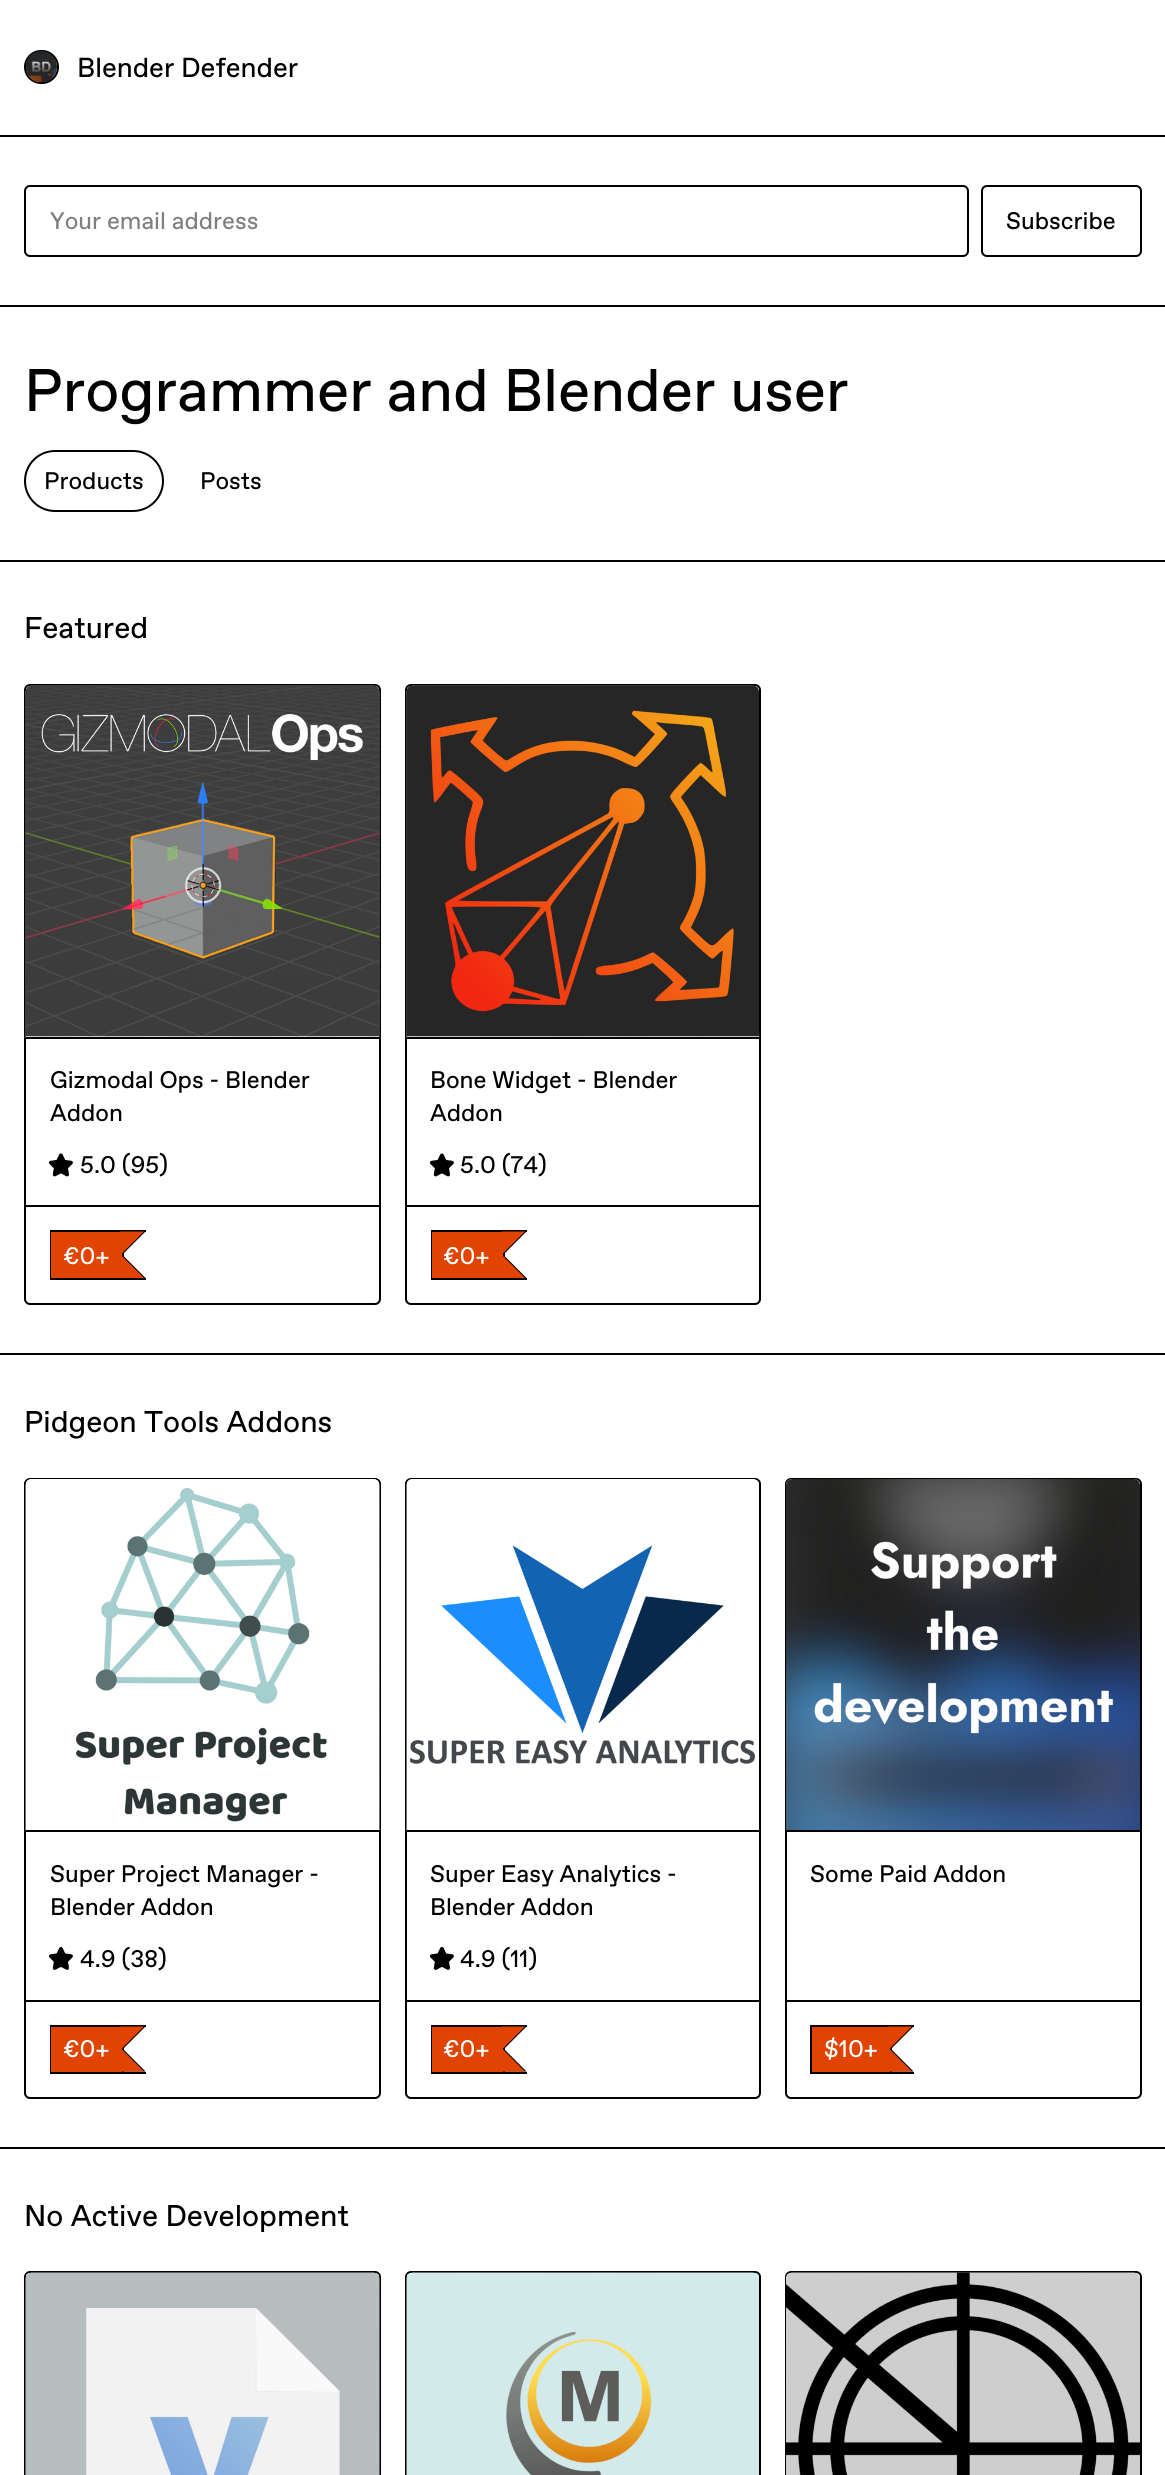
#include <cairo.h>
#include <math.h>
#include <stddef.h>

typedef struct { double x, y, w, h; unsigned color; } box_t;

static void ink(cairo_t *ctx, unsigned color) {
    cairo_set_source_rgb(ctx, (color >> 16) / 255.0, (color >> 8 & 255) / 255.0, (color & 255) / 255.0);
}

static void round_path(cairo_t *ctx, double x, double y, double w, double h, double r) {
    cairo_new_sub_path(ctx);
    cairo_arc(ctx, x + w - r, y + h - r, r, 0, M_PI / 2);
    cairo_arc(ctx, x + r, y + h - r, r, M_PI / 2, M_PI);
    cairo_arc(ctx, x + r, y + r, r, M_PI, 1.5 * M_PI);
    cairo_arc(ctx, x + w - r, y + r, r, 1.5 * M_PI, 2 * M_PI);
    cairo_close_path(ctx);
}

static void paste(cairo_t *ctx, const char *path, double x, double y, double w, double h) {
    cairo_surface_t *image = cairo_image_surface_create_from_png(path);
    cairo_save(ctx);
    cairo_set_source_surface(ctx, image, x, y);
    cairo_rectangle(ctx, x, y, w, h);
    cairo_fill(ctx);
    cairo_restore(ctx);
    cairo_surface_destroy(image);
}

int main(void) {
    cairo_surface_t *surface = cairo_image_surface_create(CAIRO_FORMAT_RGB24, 1165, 2475);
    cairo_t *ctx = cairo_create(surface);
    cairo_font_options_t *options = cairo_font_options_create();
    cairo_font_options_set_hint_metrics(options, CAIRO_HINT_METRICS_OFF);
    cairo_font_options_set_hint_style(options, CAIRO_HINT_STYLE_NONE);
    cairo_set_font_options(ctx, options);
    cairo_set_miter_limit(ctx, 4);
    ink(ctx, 0xFFFFFF);
    cairo_paint(ctx);
    ink(ctx, 0x000000);
    cairo_rectangle(ctx, 0, 135, 1165, 2);
    cairo_fill(ctx);
    round_path(ctx, 25, 51, 33, 32, 16);
    cairo_stroke(ctx);
    paste(ctx, "media/1.png", 25, 51, 32, 32);
    cairo_select_font_face(ctx, "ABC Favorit", CAIRO_FONT_SLANT_NORMAL, CAIRO_FONT_WEIGHT_NORMAL);
    cairo_set_font_size(ctx, 27.5);
    cairo_move_to(ctx, 77, 77);
    cairo_show_text(ctx, "Blender Defender");
    cairo_rectangle(ctx, 0, 305, 1165, 2);
    cairo_fill(ctx);
    round_path(ctx, 25, 186, 943, 70, 5);
    cairo_stroke(ctx);
    cairo_set_font_size(ctx, 24);
    ink(ctx, 0x808080);
    cairo_move_to(ctx, 50, 229);
    cairo_show_text(ctx, "Your email address");
    round_path(ctx, 982, 186, 159, 70, 5);
    ink(ctx, 0x000000);
    cairo_stroke(ctx);
    cairo_move_to(ctx, 1006, 229);
    cairo_show_text(ctx, "Subscribe");
    cairo_rectangle(ctx, 0, 560, 1165, 2);
    cairo_fill(ctx);
    cairo_set_font_size(ctx, 60);
    cairo_move_to(ctx, 24, 411);
    cairo_show_text(ctx, "Programmer and Blender user");
    round_path(ctx, 25, 451, 138, 60, 30);
    cairo_stroke(ctx);
    cairo_set_font_size(ctx, 24);
    cairo_move_to(ctx, 44, 489);
    cairo_show_text(ctx, "Products");
    cairo_move_to(ctx, 200, 489);
    cairo_show_text(ctx, "Posts");
    cairo_rectangle(ctx, 0, 1353, 1165, 2);
    cairo_fill(ctx);
    cairo_set_font_size(ctx, 30);
    cairo_move_to(ctx, 24, 638);
    cairo_show_text(ctx, "Featured");
    round_path(ctx, 25, 685, 355, 619, 5);
    cairo_stroke(ctx);
    paste(ctx, "media/2.png", 25, 685, 355, 353);
    cairo_rectangle(ctx, 26, 1037, 354, 2);
    cairo_fill(ctx);
    paste(ctx, "media/3.png", 25, 685, 355, 352);
    cairo_rectangle(ctx, 26, 1205, 354, 2);
    cairo_fill(ctx);
    cairo_set_font_size(ctx, 24);
    cairo_move_to(ctx, 50, 1088);
    cairo_show_text(ctx, "Gizmodal Ops - Blender");
    cairo_move_to(ctx, 50, 1121);
    cairo_show_text(ctx, "Addon");
    paste(ctx, "media/4.png", 48, 1153, 25, 24);
    cairo_move_to(ctx, 80, 1173);
    cairo_show_text(ctx, "5.0 (95)");
    {
        static const box_t items[] = {
            {50, 1230, 96, 2, 0x000000},
            {50, 1278, 96, 2, 0x000000},
            {50, 1230, 2, 50, 0x000000},
            {51, 1232, 71, 46, 0xE14400},
        };
        for (size_t i = 0; i < sizeof items / sizeof *items; i++) {
            ink(ctx, items[i].color);
            cairo_rectangle(ctx, items[i].x, items[i].y, items[i].w, items[i].h);
            cairo_fill(ctx);
        }
    }
    ink(ctx, 0x000000);
    cairo_new_path(ctx);
    cairo_move_to(ctx, 121.5, 1231.5);
    cairo_line_to(ctx, 145.5, 1231.5);
    cairo_line_to(ctx, 123, 1254);
    cairo_close_path(ctx);
    cairo_move_to(ctx, 145.5, 1278);
    cairo_line_to(ctx, 121.5, 1278);
    cairo_line_to(ctx, 123, 1255.5);
    cairo_close_path(ctx);
    cairo_fill(ctx);
    cairo_rectangle(ctx, 122, 1251, 2, 7);
    cairo_fill(ctx);
    ink(ctx, 0xE14400);
    cairo_new_path(ctx);
    cairo_move_to(ctx, 120, 1231.5);
    cairo_line_to(ctx, 144, 1231.5);
    cairo_line_to(ctx, 121.5, 1254);
    cairo_close_path(ctx);
    cairo_move_to(ctx, 144, 1278);
    cairo_line_to(ctx, 120, 1278);
    cairo_line_to(ctx, 121.5, 1255.5);
    cairo_close_path(ctx);
    cairo_fill(ctx);
    ink(ctx, 0xFFFFFF);
    cairo_move_to(ctx, 63, 1264);
    cairo_show_text(ctx, "€0+");
    round_path(ctx, 406, 685, 354, 619, 5);
    ink(ctx, 0x000000);
    cairo_stroke(ctx);
    paste(ctx, "media/5.png", 406, 685, 353, 353);
    cairo_rectangle(ctx, 407, 1037, 352, 2);
    cairo_fill(ctx);
    paste(ctx, "media/6.png", 406, 685, 353, 352);
    cairo_rectangle(ctx, 407, 1205, 352, 2);
    cairo_fill(ctx);
    cairo_move_to(ctx, 430, 1088);
    cairo_show_text(ctx, "Bone Widget - Blender");
    cairo_move_to(ctx, 430, 1121);
    cairo_show_text(ctx, "Addon");
    paste(ctx, "media/4.png", 429, 1153, 25, 24);
    cairo_move_to(ctx, 460, 1173);
    cairo_show_text(ctx, "5.0 (74)");
    {
        static const box_t items[] = {
            {431, 1230, 96, 2, 0x000000},
            {431, 1278, 96, 2, 0x000000},
            {431, 1230, 2, 50, 0x000000},
            {432, 1232, 71, 46, 0xE14400},
        };
        for (size_t i = 0; i < sizeof items / sizeof *items; i++) {
            ink(ctx, items[i].color);
            cairo_rectangle(ctx, items[i].x, items[i].y, items[i].w, items[i].h);
            cairo_fill(ctx);
        }
    }
    ink(ctx, 0x000000);
    cairo_new_path(ctx);
    cairo_move_to(ctx, 502.5, 1231.5);
    cairo_line_to(ctx, 526.5, 1231.5);
    cairo_line_to(ctx, 504, 1254);
    cairo_close_path(ctx);
    cairo_move_to(ctx, 526.5, 1278);
    cairo_line_to(ctx, 502.5, 1278);
    cairo_line_to(ctx, 504, 1255.5);
    cairo_close_path(ctx);
    cairo_fill(ctx);
    cairo_rectangle(ctx, 503, 1251, 2, 7);
    cairo_fill(ctx);
    ink(ctx, 0xE14400);
    cairo_new_path(ctx);
    cairo_move_to(ctx, 501, 1231.5);
    cairo_line_to(ctx, 525, 1231.5);
    cairo_line_to(ctx, 502.5, 1254);
    cairo_close_path(ctx);
    cairo_move_to(ctx, 525, 1278);
    cairo_line_to(ctx, 501, 1278);
    cairo_line_to(ctx, 502.5, 1255.5);
    cairo_close_path(ctx);
    cairo_fill(ctx);
    ink(ctx, 0xFFFFFF);
    cairo_move_to(ctx, 443, 1264);
    cairo_show_text(ctx, "€0+");
    ink(ctx, 0x000000);
    cairo_rectangle(ctx, 0, 2147, 1165, 2);
    cairo_fill(ctx);
    cairo_set_font_size(ctx, 30);
    cairo_move_to(ctx, 24, 1432);
    cairo_show_text(ctx, "Pidgeon Tools Addons");
    round_path(ctx, 25, 1479, 355, 619, 5);
    cairo_stroke(ctx);
    paste(ctx, "media/7.png", 25, 1479, 355, 353);
    cairo_rectangle(ctx, 26, 1830, 354, 2);
    cairo_fill(ctx);
    paste(ctx, "media/8.png", 25, 1479, 355, 351);
    cairo_rectangle(ctx, 26, 2000, 354, 2);
    cairo_fill(ctx);
    cairo_set_font_size(ctx, 24);
    cairo_move_to(ctx, 50, 1882);
    cairo_show_text(ctx, "Super Project Manager -");
    cairo_move_to(ctx, 50, 1915);
    cairo_show_text(ctx, "Blender Addon");
    paste(ctx, "media/9.png", 48, 1946, 25, 24);
    cairo_move_to(ctx, 80, 1967);
    cairo_show_text(ctx, "4.9 (38)");
    {
        static const box_t items[] = {
            {50, 2025, 96, 2, 0x000000},
            {50, 2072, 96, 2, 0x000000},
            {50, 2025, 2, 48, 0x000000},
        };
        for (size_t i = 0; i < sizeof items / sizeof *items; i++) {
            ink(ctx, items[i].color);
            cairo_rectangle(ctx, items[i].x, items[i].y, items[i].w, items[i].h);
            cairo_fill(ctx);
        }
    }
    cairo_new_path(ctx);
    cairo_move_to(ctx, 121.5, 2026.5);
    cairo_line_to(ctx, 145.5, 2026.5);
    cairo_line_to(ctx, 123, 2049);
    cairo_close_path(ctx);
    cairo_move_to(ctx, 145.5, 2071.5);
    cairo_line_to(ctx, 121.5, 2071.5);
    cairo_line_to(ctx, 123, 2049);
    cairo_close_path(ctx);
    cairo_fill(ctx);
    cairo_rectangle(ctx, 122, 2046, 2, 26);
    cairo_fill(ctx);
    ink(ctx, 0xE14400);
    cairo_new_path(ctx);
    cairo_move_to(ctx, 120, 2026.5);
    cairo_line_to(ctx, 144, 2026.5);
    cairo_line_to(ctx, 121.5, 2049);
    cairo_close_path(ctx);
    cairo_move_to(ctx, 144, 2071.5);
    cairo_line_to(ctx, 120, 2071.5);
    cairo_line_to(ctx, 121.5, 2049);
    cairo_close_path(ctx);
    cairo_fill(ctx);
    cairo_rectangle(ctx, 120, 2027, 2, 45);
    cairo_fill(ctx);
    cairo_rectangle(ctx, 51, 2027, 69, 45);
    cairo_fill(ctx);
    ink(ctx, 0xFFFFFF);
    cairo_move_to(ctx, 63, 2057);
    cairo_show_text(ctx, "€0+");
    round_path(ctx, 406, 1479, 354, 619, 5);
    ink(ctx, 0x000000);
    cairo_stroke(ctx);
    paste(ctx, "media/10.png", 406, 1479, 353, 353);
    cairo_rectangle(ctx, 407, 1830, 352, 2);
    cairo_fill(ctx);
    paste(ctx, "media/11.png", 406, 1479, 353, 351);
    cairo_rectangle(ctx, 407, 2000, 352, 2);
    cairo_fill(ctx);
    cairo_move_to(ctx, 430, 1882);
    cairo_show_text(ctx, "Super Easy Analytics -");
    cairo_move_to(ctx, 430, 1915);
    cairo_show_text(ctx, "Blender Addon");
    paste(ctx, "media/9.png", 429, 1946, 25, 24);
    cairo_move_to(ctx, 460, 1967);
    cairo_show_text(ctx, "4.9 (11)");
    {
        static const box_t items[] = {
            {431, 2025, 96, 2, 0x000000},
            {431, 2072, 96, 2, 0x000000},
            {431, 2025, 2, 48, 0x000000},
        };
        for (size_t i = 0; i < sizeof items / sizeof *items; i++) {
            ink(ctx, items[i].color);
            cairo_rectangle(ctx, items[i].x, items[i].y, items[i].w, items[i].h);
            cairo_fill(ctx);
        }
    }
    cairo_new_path(ctx);
    cairo_move_to(ctx, 502.5, 2026.5);
    cairo_line_to(ctx, 526.5, 2026.5);
    cairo_line_to(ctx, 504, 2049);
    cairo_close_path(ctx);
    cairo_move_to(ctx, 526.5, 2071.5);
    cairo_line_to(ctx, 502.5, 2071.5);
    cairo_line_to(ctx, 504, 2049);
    cairo_close_path(ctx);
    cairo_fill(ctx);
    cairo_rectangle(ctx, 503, 2046, 2, 26);
    cairo_fill(ctx);
    ink(ctx, 0xE14400);
    cairo_new_path(ctx);
    cairo_move_to(ctx, 501, 2026.5);
    cairo_line_to(ctx, 525, 2026.5);
    cairo_line_to(ctx, 502.5, 2049);
    cairo_close_path(ctx);
    cairo_move_to(ctx, 525, 2071.5);
    cairo_line_to(ctx, 501, 2071.5);
    cairo_line_to(ctx, 502.5, 2049);
    cairo_close_path(ctx);
    cairo_fill(ctx);
    cairo_rectangle(ctx, 501, 2027, 2, 45);
    cairo_fill(ctx);
    cairo_rectangle(ctx, 432, 2027, 69, 45);
    cairo_fill(ctx);
    ink(ctx, 0xFFFFFF);
    cairo_move_to(ctx, 443, 2057);
    cairo_show_text(ctx, "€0+");
    round_path(ctx, 786, 1479, 355, 619, 5);
    ink(ctx, 0x000000);
    cairo_stroke(ctx);
    paste(ctx, "media/12.png", 786, 1479, 354, 6);
    cairo_rectangle(ctx, 786, 1830, 354, 2);
    cairo_fill(ctx);
    paste(ctx, "media/13.png", 786, 1479, 354, 351);
    cairo_rectangle(ctx, 786, 2000, 354, 2);
    cairo_fill(ctx);
    cairo_move_to(ctx, 810, 1882);
    cairo_show_text(ctx, "Some Paid Addon");
    {
        static const box_t items[] = {
            {810, 2025, 104, 2, 0x000000},
            {810, 2072, 104, 2, 0x000000},
            {810, 2025, 2, 48, 0x000000},
        };
        for (size_t i = 0; i < sizeof items / sizeof *items; i++) {
            ink(ctx, items[i].color);
            cairo_rectangle(ctx, items[i].x, items[i].y, items[i].w, items[i].h);
            cairo_fill(ctx);
        }
    }
    cairo_new_path(ctx);
    cairo_move_to(ctx, 889.5, 2026.5);
    cairo_line_to(ctx, 913.5, 2026.5);
    cairo_line_to(ctx, 891, 2049);
    cairo_close_path(ctx);
    cairo_move_to(ctx, 913.5, 2071.5);
    cairo_line_to(ctx, 889.5, 2071.5);
    cairo_line_to(ctx, 891, 2049);
    cairo_close_path(ctx);
    cairo_fill(ctx);
    cairo_rectangle(ctx, 890, 2046, 2, 26);
    cairo_fill(ctx);
    ink(ctx, 0xE14400);
    cairo_new_path(ctx);
    cairo_move_to(ctx, 888, 2026.5);
    cairo_line_to(ctx, 912, 2026.5);
    cairo_line_to(ctx, 889.5, 2049);
    cairo_close_path(ctx);
    cairo_move_to(ctx, 912, 2071.5);
    cairo_line_to(ctx, 888, 2071.5);
    cairo_line_to(ctx, 889.5, 2049);
    cairo_close_path(ctx);
    cairo_fill(ctx);
    cairo_rectangle(ctx, 888, 2027, 2, 45);
    cairo_fill(ctx);
    cairo_rectangle(ctx, 812, 2027, 76, 45);
    cairo_fill(ctx);
    ink(ctx, 0xFFFFFF);
    cairo_move_to(ctx, 824, 2057);
    cairo_show_text(ctx, "$10+");
    cairo_set_font_size(ctx, 30);
    ink(ctx, 0x000000);
    cairo_move_to(ctx, 24, 2226);
    cairo_show_text(ctx, "No Active Development");
    round_path(ctx, 25, 2272, 355, 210, 5);
    cairo_stroke(ctx);
    paste(ctx, "media/14.png", 25, 2272, 355, 203);
    paste(ctx, "media/15.png", 25, 2272, 355, 203);
    round_path(ctx, 406, 2272, 354, 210, 5);
    cairo_stroke(ctx);
    paste(ctx, "media/16.png", 406, 2272, 353, 203);
    paste(ctx, "media/17.png", 406, 2272, 353, 203);
    round_path(ctx, 786, 2272, 355, 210, 5);
    cairo_stroke(ctx);
    paste(ctx, "media/18.png", 786, 2272, 354, 7);
    paste(ctx, "media/19.png", 786, 2272, 354, 203);
    cairo_surface_write_to_png(surface, "image.png");
    cairo_font_options_destroy(options);
    cairo_destroy(ctx);
    cairo_surface_destroy(surface);
    return 0;
}
